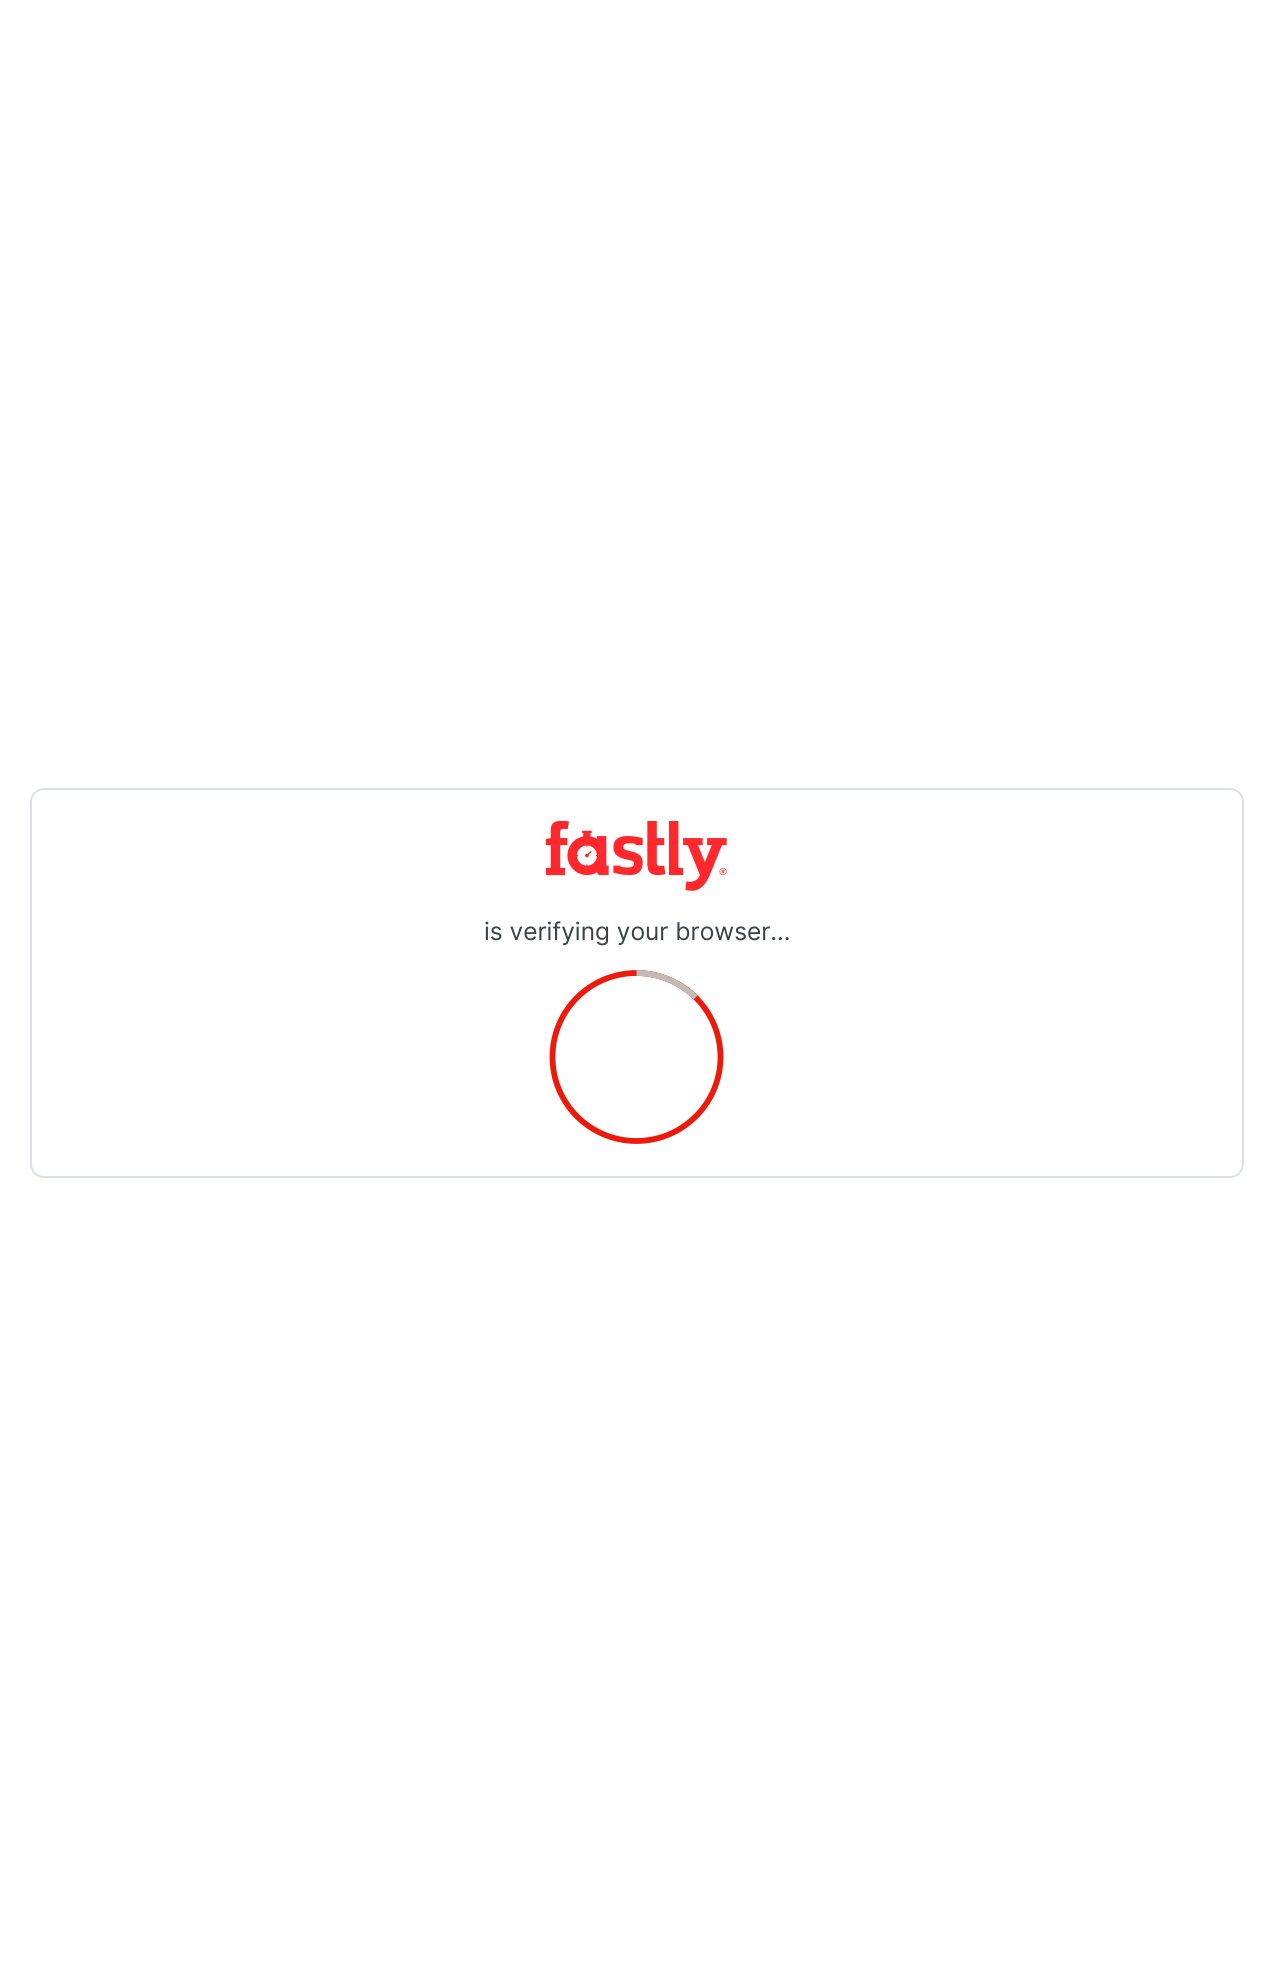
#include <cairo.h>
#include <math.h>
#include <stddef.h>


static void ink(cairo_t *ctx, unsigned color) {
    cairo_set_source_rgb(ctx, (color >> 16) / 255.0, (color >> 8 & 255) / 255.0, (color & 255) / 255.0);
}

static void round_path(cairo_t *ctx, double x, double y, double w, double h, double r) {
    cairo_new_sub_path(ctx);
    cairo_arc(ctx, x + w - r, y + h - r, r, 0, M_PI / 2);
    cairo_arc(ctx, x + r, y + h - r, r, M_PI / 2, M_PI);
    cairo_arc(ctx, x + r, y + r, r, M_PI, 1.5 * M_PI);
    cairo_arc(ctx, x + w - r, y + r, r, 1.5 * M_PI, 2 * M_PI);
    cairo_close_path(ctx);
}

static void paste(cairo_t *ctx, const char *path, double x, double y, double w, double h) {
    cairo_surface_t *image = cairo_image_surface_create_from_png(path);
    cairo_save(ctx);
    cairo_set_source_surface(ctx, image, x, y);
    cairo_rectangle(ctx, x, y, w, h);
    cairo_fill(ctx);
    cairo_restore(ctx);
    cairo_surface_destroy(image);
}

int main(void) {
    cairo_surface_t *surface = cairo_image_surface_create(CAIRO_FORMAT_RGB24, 1274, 1964);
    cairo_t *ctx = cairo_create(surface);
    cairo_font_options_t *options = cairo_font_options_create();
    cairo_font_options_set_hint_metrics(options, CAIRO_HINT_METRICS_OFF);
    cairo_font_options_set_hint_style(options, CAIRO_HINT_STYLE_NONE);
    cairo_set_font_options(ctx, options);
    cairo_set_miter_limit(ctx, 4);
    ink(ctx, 0xFFFFFF);
    cairo_paint(ctx);
    round_path(ctx, 31, 789, 1212, 388, 13);
    ink(ctx, 0xDCE0E4);
    cairo_stroke(ctx);
    paste(ctx, "media/1.png", 545, 821, 182, 70);
    cairo_select_font_face(ctx, "Inter", CAIRO_FONT_SLANT_NORMAL, CAIRO_FONT_WEIGHT_NORMAL);
    cairo_set_font_size(ctx, 24.5);
    ink(ctx, 0x3A424A);
    cairo_move_to(ctx, 484, 940);
    cairo_show_text(ctx, "is verifying your browser...");
    cairo_new_path(ctx);
    cairo_move_to(ctx, 552.5, 1057);
    cairo_curve_to(ctx, 552.5, 1010.5, 590, 973, 636.5, 973);
    cairo_curve_to(ctx, 682.5, 973, 720.5, 1010.5, 720.5, 1057);
    cairo_curve_to(ctx, 720.5, 1103.5, 682.5, 1141, 636.5, 1141);
    cairo_curve_to(ctx, 590, 1141, 552.5, 1103.5, 552.5, 1057);
    cairo_close_path(ctx);
    ink(ctx, 0xEB1A0C);
    cairo_set_line_width(ctx, 5.8);
    cairo_stroke(ctx);
    cairo_new_path(ctx);
    cairo_move_to(ctx, 695.5, 997.5);
    cairo_curve_to(ctx, 680, 982, 658.5, 973, 636.5, 973);
    ink(ctx, 0xC2BAB5);
    cairo_stroke(ctx);
    cairo_surface_write_to_png(surface, "image.png");
    cairo_font_options_destroy(options);
    cairo_destroy(ctx);
    cairo_surface_destroy(surface);
    return 0;
}
